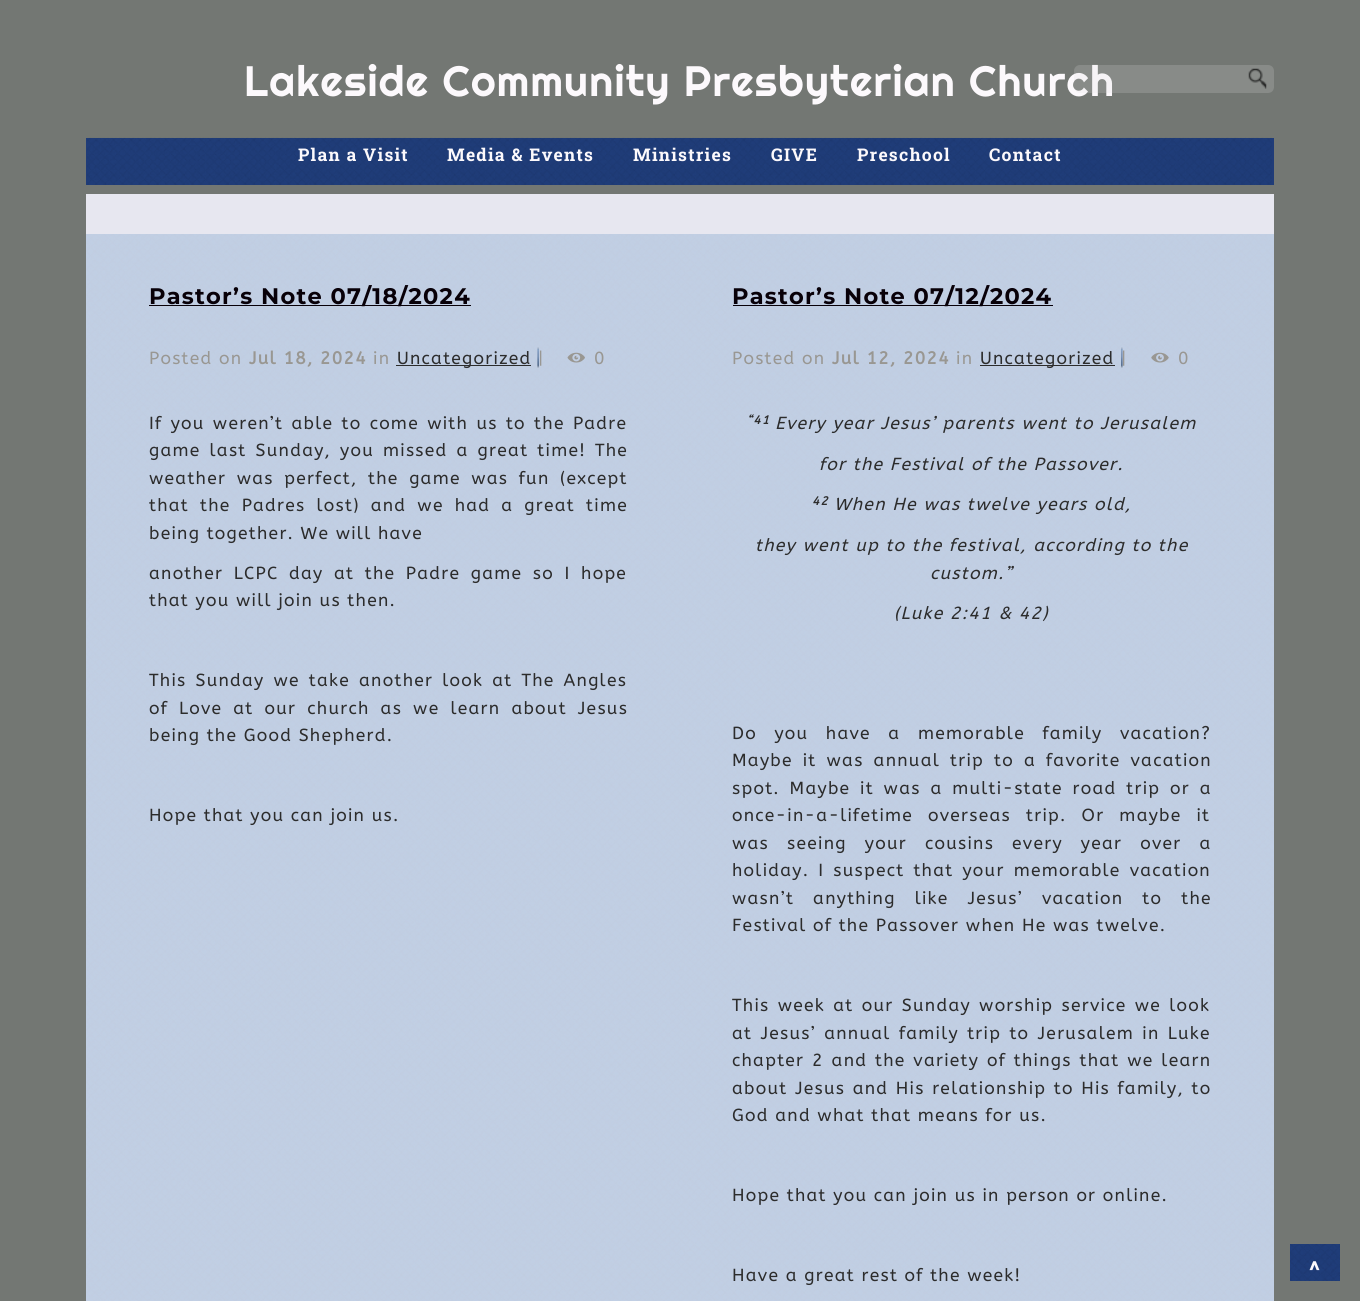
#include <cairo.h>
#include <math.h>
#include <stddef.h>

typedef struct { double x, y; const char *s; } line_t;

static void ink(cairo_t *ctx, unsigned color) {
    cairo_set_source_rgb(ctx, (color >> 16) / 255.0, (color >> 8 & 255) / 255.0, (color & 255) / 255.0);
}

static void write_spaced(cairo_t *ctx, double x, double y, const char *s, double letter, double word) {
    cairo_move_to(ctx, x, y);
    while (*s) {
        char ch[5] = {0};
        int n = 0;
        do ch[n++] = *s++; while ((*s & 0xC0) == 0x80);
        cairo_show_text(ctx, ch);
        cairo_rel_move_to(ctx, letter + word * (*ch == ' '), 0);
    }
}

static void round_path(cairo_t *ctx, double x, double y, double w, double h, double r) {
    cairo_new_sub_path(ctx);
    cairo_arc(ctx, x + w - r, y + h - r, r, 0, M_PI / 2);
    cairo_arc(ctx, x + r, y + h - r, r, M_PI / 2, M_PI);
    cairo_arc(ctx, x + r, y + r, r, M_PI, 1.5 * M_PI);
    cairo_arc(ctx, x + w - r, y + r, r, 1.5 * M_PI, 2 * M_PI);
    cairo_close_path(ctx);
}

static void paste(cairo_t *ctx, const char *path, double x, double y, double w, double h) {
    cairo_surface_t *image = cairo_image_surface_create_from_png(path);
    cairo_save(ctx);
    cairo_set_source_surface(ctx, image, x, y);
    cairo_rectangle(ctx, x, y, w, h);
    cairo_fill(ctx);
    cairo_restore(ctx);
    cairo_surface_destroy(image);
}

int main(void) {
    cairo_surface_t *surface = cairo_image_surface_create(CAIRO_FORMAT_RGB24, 1360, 1301);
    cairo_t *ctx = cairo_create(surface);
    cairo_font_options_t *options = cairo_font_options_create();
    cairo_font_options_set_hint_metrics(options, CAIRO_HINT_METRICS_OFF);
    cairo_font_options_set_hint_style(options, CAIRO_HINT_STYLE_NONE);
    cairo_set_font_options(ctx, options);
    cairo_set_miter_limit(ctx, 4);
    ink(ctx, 0x737773);
    cairo_paint(ctx);
    cairo_select_font_face(ctx, "Righteous", CAIRO_FONT_SLANT_NORMAL, CAIRO_FONT_WEIGHT_NORMAL);
    cairo_set_font_size(ctx, 42.5);
    ink(ctx, 0xFCF9FC);
    write_spaced(ctx, 244, 96, "Lakeside Community Presbyterian Church", 1.25, 0);
    cairo_set_source_rgba(ctx, 0.875, 0.875, 0.875, 0.2);
    round_path(ctx, 1074, 65, 200, 28, 6);
    cairo_fill(ctx);
    paste(ctx, "media/1.png", 1248, 68, 19, 21);
    ink(ctx, 0x203C78);
    cairo_rectangle(ctx, 86, 138, 1188, 47);
    cairo_fill(ctx);
    paste(ctx, "media/2.png", 87, 137, 1185, 48);
    cairo_select_font_face(ctx, "Roboto Slab", CAIRO_FONT_SLANT_NORMAL, CAIRO_FONT_WEIGHT_BOLD);
    cairo_set_font_size(ctx, 17.5);
    ink(ctx, 0xFCF9FC);
    {
        static const line_t items[] = {
            {298, 161, "Plan a Visit"},
            {447, 161, "Media & Events"},
            {633, 161, "Ministries"},
            {771, 161, "GIVE"},
            {857, 161, "Preschool"},
            {989, 161, "Contact"},
        };
        for (size_t i = 0; i < sizeof items / sizeof *items; i++) {
            write_spaced(ctx, items[i].x, items[i].y, items[i].s, 1.25, 0);
        }
    }
    ink(ctx, 0xE7E7F0);
    cairo_rectangle(ctx, 86, 194, 1188, 40);
    cairo_fill(ctx);
    ink(ctx, 0xC1CFE4);
    cairo_rectangle(ctx, 86, 234, 1188, 1067);
    cairo_fill(ctx);
    paste(ctx, "media/3.png", 86, 234, 1188, 1067);
    ink(ctx, 0x080008);
    cairo_rectangle(ctx, 149, 305, 322, 1);
    cairo_fill(ctx);
    cairo_select_font_face(ctx, "Montserrat", CAIRO_FONT_SLANT_NORMAL, CAIRO_FONT_WEIGHT_BOLD);
    cairo_set_font_size(ctx, 22.5);
    write_spaced(ctx, 149, 304, "Pastor’s Note 07/18/2024", 1.25, 0);
    cairo_select_font_face(ctx, "ABeeZee", CAIRO_FONT_SLANT_NORMAL, CAIRO_FONT_WEIGHT_NORMAL);
    cairo_set_font_size(ctx, 17.5);
    ink(ctx, 0x999792);
    write_spaced(ctx, 149, 364, "Posted on", 1.25, 0);
    cairo_select_font_face(ctx, "ABeeZee", CAIRO_FONT_SLANT_NORMAL, CAIRO_FONT_WEIGHT_BOLD);
    write_spaced(ctx, 249, 364, "Jul 18, 2024", 1.25, 0);
    cairo_select_font_face(ctx, "ABeeZee", CAIRO_FONT_SLANT_NORMAL, CAIRO_FONT_WEIGHT_NORMAL);
    write_spaced(ctx, 373, 364, "in", 1.25, 0);
    ink(ctx, 0x2C2C2C);
    cairo_rectangle(ctx, 396, 365, 135, 1);
    cairo_fill(ctx);
    write_spaced(ctx, 397, 364, "Uncategorized", 1.25, 0);
    paste(ctx, "media/4.png", 537, 347, 2, 21);
    ink(ctx, 0x999792);
    write_spaced(ctx, 538, 364, "|", 1.25, 0);
    paste(ctx, "media/5.png", 567, 352, 18, 11);
    write_spaced(ctx, 594, 364, "0", 1.25, 0);
    ink(ctx, 0x2C2C2C);
    write_spaced(ctx, 149, 429, "If you weren’t able to come with us to the Padre", 1.25, 1.75);
    write_spaced(ctx, 149, 456, "game last Sunday, you missed a great time! The", 1.25, 2.5);
    write_spaced(ctx, 149, 484, "weather was perfect, the game was fun (except", 1.25, 4);
    write_spaced(ctx, 149, 511, "that the Padres lost) and we had a great time", 1.25, 4.5);
    write_spaced(ctx, 149, 539, "being together. We will have", 1.25, 0);
    write_spaced(ctx, 149, 579, "another LCPC day at the Padre game so I hope", 1.25, 4);
    write_spaced(ctx, 149, 606, "that you will join us then.", 1.25, 0);
    write_spaced(ctx, 149, 686, "This Sunday we take another look at The Angles", 1.25, 2.5);
    write_spaced(ctx, 149, 714, "of Love at our church as we learn about Jesus", 1.25, 4.5);
    write_spaced(ctx, 149, 741, "being the Good Shepherd.", 1.25, 0);
    write_spaced(ctx, 149, 821, "Hope that you can join us.", 1.25, 0);
    ink(ctx, 0x080008);
    cairo_rectangle(ctx, 733, 305, 320, 1);
    cairo_fill(ctx);
    cairo_select_font_face(ctx, "Montserrat", CAIRO_FONT_SLANT_NORMAL, CAIRO_FONT_WEIGHT_BOLD);
    cairo_set_font_size(ctx, 22.5);
    write_spaced(ctx, 732, 304, "Pastor’s Note 07/12/2024", 1.25, 0);
    cairo_select_font_face(ctx, "ABeeZee", CAIRO_FONT_SLANT_NORMAL, CAIRO_FONT_WEIGHT_NORMAL);
    cairo_set_font_size(ctx, 17.5);
    ink(ctx, 0x999792);
    write_spaced(ctx, 732, 364, "Posted on", 1.25, 0);
    cairo_select_font_face(ctx, "ABeeZee", CAIRO_FONT_SLANT_NORMAL, CAIRO_FONT_WEIGHT_BOLD);
    write_spaced(ctx, 832, 364, "Jul 12, 2024", 1.25, 0);
    cairo_select_font_face(ctx, "ABeeZee", CAIRO_FONT_SLANT_NORMAL, CAIRO_FONT_WEIGHT_NORMAL);
    write_spaced(ctx, 956, 364, "in", 1.25, 0);
    ink(ctx, 0x2C2C2C);
    cairo_rectangle(ctx, 980, 365, 135, 1);
    cairo_fill(ctx);
    write_spaced(ctx, 980, 364, "Uncategorized", 1.25, 0);
    paste(ctx, "media/6.png", 1121, 347, 2, 21);
    ink(ctx, 0x999792);
    write_spaced(ctx, 1121, 364, "|", 1.25, 0);
    paste(ctx, "media/7.png", 1151, 352, 18, 11);
    write_spaced(ctx, 1178, 364, "0", 1.25, 0);
    cairo_select_font_face(ctx, "ABeeZee", CAIRO_FONT_SLANT_ITALIC, CAIRO_FONT_WEIGHT_BOLD);
    cairo_set_font_size(ctx, 12);
    ink(ctx, 0x2C2C2C);
    write_spaced(ctx, 747, 424, "“41", 1.25, 0);
    cairo_select_font_face(ctx, "ABeeZee", CAIRO_FONT_SLANT_ITALIC, CAIRO_FONT_WEIGHT_NORMAL);
    cairo_set_font_size(ctx, 17.5);
    write_spaced(ctx, 775, 429, "Every year Jesus’ parents went to Jerusalem", 1.25, 0);
    write_spaced(ctx, 819, 470, "for the Festival of the Passover.", 1.25, 0);
    cairo_select_font_face(ctx, "ABeeZee", CAIRO_FONT_SLANT_ITALIC, CAIRO_FONT_WEIGHT_BOLD);
    cairo_set_font_size(ctx, 12);
    write_spaced(ctx, 812, 505, "42", 1.25, 0);
    cairo_select_font_face(ctx, "ABeeZee", CAIRO_FONT_SLANT_ITALIC, CAIRO_FONT_WEIGHT_NORMAL);
    cairo_set_font_size(ctx, 17.5);
    {
        static const line_t items[] = {
            {834, 510, "When He was twelve years old,"},
            {755, 551, "they went up to the festival, according to the"},
            {930, 579, "custom.”"},
            {894, 619, "(Luke 2:41 & 42)"},
        };
        for (size_t i = 0; i < sizeof items / sizeof *items; i++) {
            write_spaced(ctx, items[i].x, items[i].y, items[i].s, 1.25, 0);
        }
    }
    cairo_select_font_face(ctx, "ABeeZee", CAIRO_FONT_SLANT_NORMAL, CAIRO_FONT_WEIGHT_NORMAL);
    write_spaced(ctx, 732, 739, "Do you have a memorable family vacation?", 1.25, 11);
    write_spaced(ctx, 732, 766, "Maybe it was annual trip to a favorite vacation", 1.25, 3.5);
    write_spaced(ctx, 732, 794, "spot. Maybe it was a multi-state road trip or a", 1.25, 3.25);
    write_spaced(ctx, 732, 821, "once-in-a-lifetime overseas trip. Or maybe it", 1.25, 8.5);
    write_spaced(ctx, 732, 849, "was seeing your cousins every year over a", 1.25, 11.5);
    write_spaced(ctx, 732, 876, "holiday. I suspect that your memorable vacation", 1.25, 2.5);
    write_spaced(ctx, 732, 904, "wasn’t anything like Jesus’ vacation to the", 1.25, 12.5);
    write_spaced(ctx, 732, 931, "Festival of the Passover when He was twelve.", 1.25, 0);
    write_spaced(ctx, 732, 1011, "This week at our Sunday worship service we look", 1.25, 1.75);
    write_spaced(ctx, 732, 1039, "at Jesus’ annual family trip to Jerusalem in Luke", 1.25, 1.75);
    write_spaced(ctx, 732, 1066, "chapter 2 and the variety of things that we learn", 1.25, 1.25);
    write_spaced(ctx, 732, 1094, "about Jesus and His relationship to His family, to", 1.25, 1);
    {
        static const line_t items[] = {
            {732, 1121, "God and what that means for us."},
            {732, 1201, "Hope that you can join us in person or online."},
            {732, 1281, "Have a great rest of the week!"},
        };
        for (size_t i = 0; i < sizeof items / sizeof *items; i++) {
            write_spaced(ctx, items[i].x, items[i].y, items[i].s, 1.25, 0);
        }
    }
    ink(ctx, 0x203C78);
    cairo_rectangle(ctx, 1290, 1244, 50, 37);
    cairo_fill(ctx);
    paste(ctx, "media/8.png", 1290, 1244, 50, 37);
    cairo_select_font_face(ctx, "Roboto Slab", CAIRO_FONT_SLANT_NORMAL, CAIRO_FONT_WEIGHT_BOLD);
    cairo_set_font_size(ctx, 25);
    ink(ctx, 0xFCF9FC);
    write_spaced(ctx, 1309, 1279, "^", 1.25, 0);
    cairo_surface_write_to_png(surface, "image.png");
    cairo_font_options_destroy(options);
    cairo_destroy(ctx);
    cairo_surface_destroy(surface);
    return 0;
}
